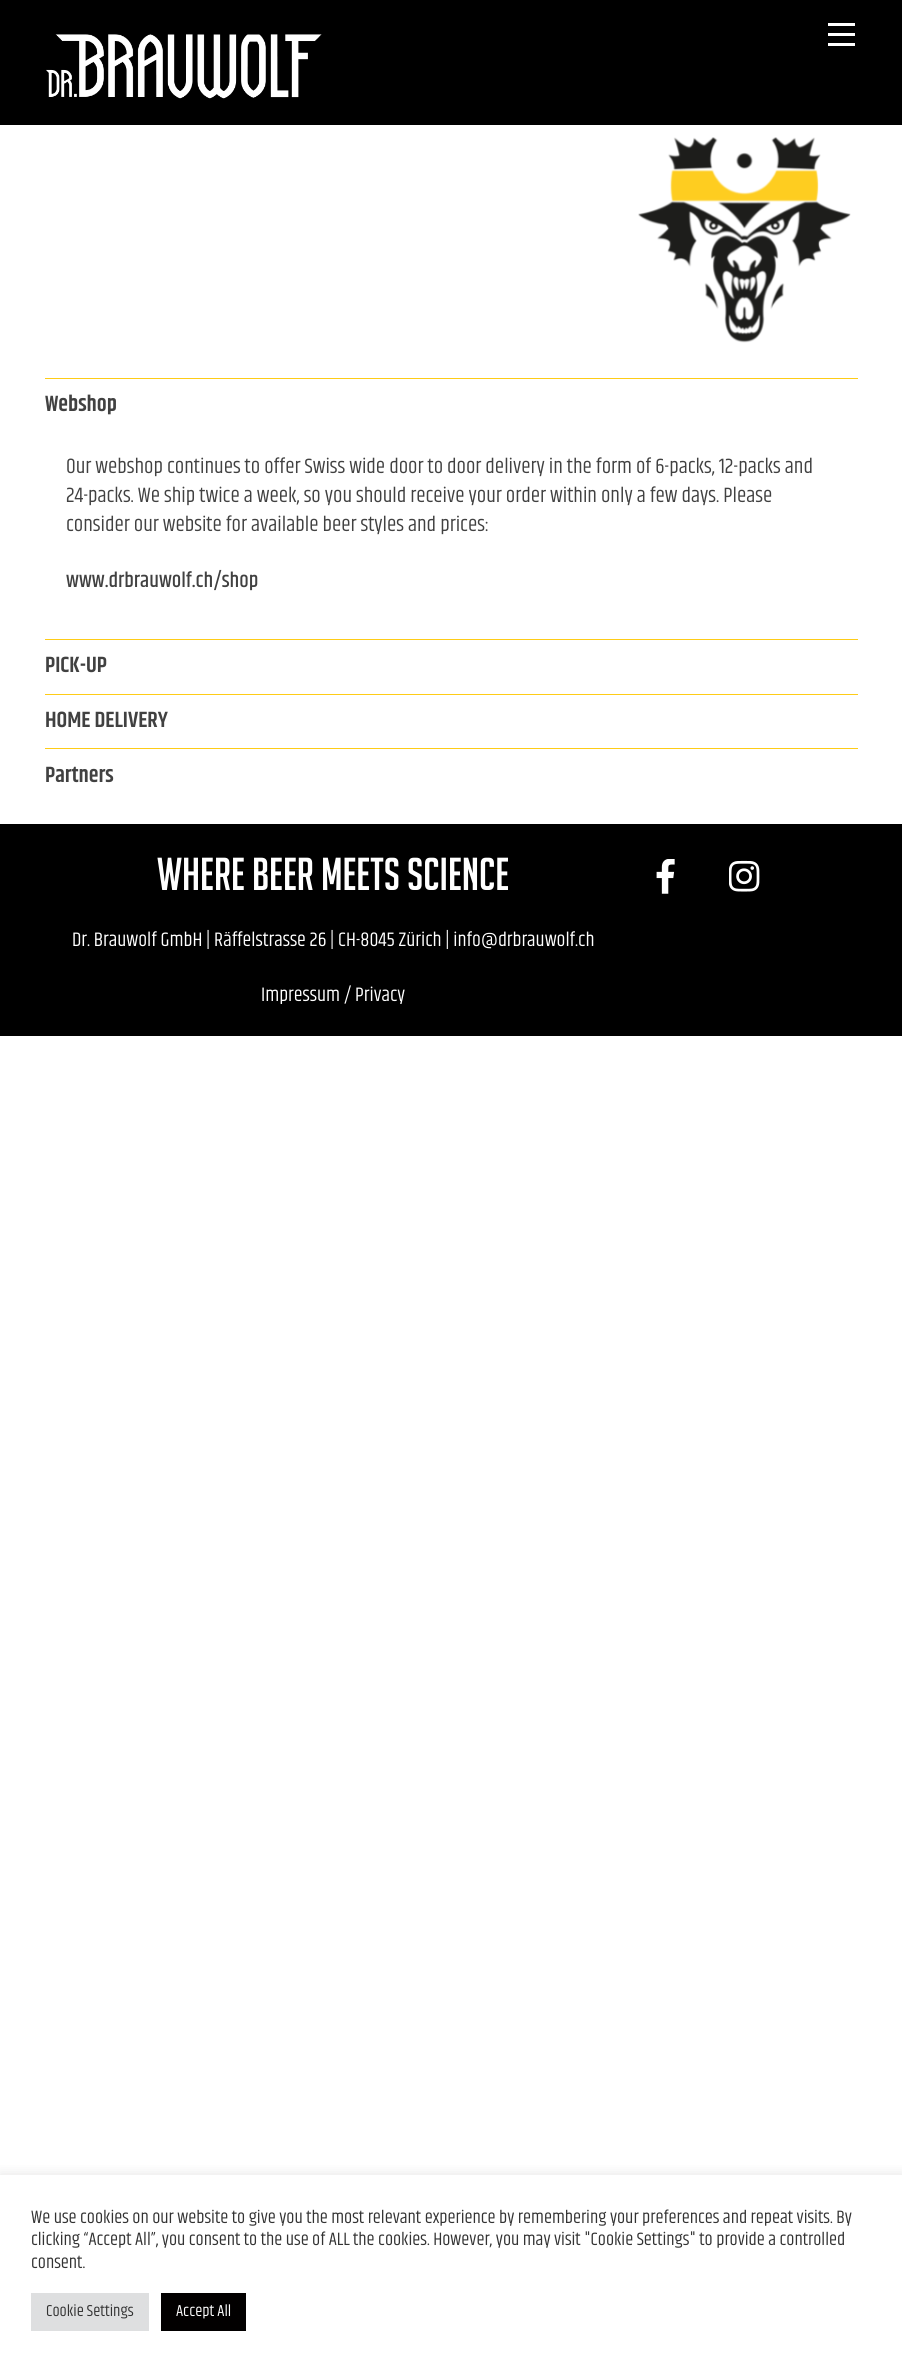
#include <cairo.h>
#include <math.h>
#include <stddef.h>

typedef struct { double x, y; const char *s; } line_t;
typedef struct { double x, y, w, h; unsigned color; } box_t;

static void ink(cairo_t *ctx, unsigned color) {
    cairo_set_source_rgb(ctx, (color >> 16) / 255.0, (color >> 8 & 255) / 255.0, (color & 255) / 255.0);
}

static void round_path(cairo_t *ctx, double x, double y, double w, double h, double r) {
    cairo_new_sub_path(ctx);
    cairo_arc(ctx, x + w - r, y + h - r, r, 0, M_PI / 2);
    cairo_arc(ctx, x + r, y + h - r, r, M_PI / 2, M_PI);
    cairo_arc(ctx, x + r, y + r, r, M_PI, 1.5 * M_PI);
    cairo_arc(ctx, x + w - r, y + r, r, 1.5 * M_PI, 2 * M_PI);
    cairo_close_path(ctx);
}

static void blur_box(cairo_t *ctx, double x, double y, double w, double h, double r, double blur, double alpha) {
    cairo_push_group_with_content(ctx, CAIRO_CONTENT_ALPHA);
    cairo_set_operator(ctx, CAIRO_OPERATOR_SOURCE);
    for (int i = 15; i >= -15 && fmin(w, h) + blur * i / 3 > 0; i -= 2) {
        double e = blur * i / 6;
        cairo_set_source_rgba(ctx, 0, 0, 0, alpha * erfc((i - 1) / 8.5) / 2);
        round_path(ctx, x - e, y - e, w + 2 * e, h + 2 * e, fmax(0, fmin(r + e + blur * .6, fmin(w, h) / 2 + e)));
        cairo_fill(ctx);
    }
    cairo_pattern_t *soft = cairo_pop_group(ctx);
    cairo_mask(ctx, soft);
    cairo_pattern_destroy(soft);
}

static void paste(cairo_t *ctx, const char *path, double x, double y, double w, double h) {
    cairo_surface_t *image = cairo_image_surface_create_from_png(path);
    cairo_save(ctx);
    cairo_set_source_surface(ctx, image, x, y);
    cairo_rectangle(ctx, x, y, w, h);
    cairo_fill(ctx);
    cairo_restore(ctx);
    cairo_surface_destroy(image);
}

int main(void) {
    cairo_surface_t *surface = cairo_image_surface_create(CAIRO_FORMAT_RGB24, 902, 2368);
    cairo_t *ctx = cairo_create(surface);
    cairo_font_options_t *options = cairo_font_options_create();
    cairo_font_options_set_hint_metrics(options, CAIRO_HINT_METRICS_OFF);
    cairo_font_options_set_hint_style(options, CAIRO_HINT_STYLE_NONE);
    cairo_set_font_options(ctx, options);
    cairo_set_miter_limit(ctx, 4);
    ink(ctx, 0xFFFFFF);
    cairo_paint(ctx);
    ink(ctx, 0x000000);
    cairo_rectangle(ctx, 0, 0, 902, 125);
    cairo_fill(ctx);
    paste(ctx, "media/1.png", 46, 34, 276, 65);
    {
        static const box_t items[] = {
            {828, 43, 27, 3, 0xFFFFFF},
            {828, 23, 27, 3, 0xFFFFFF},
            {828, 33, 27, 3, 0xFFFFFF},
        };
        for (size_t i = 0; i < sizeof items / sizeof *items; i++) {
            ink(ctx, items[i].color);
            cairo_rectangle(ctx, items[i].x, items[i].y, items[i].w, items[i].h);
            cairo_fill(ctx);
        }
    }
    paste(ctx, "media/2.png", 638, 137, 213, 206);
    ink(ctx, 0xFECC17);
    cairo_rectangle(ctx, 45, 378, 813, 1);
    cairo_fill(ctx);
    cairo_select_font_face(ctx, "Khand SemiBold", CAIRO_FONT_SLANT_NORMAL, CAIRO_FONT_WEIGHT_NORMAL);
    cairo_set_font_size(ctx, 22.25);
    ink(ctx, 0x414141);
    cairo_move_to(ctx, 45, 411);
    cairo_show_text(ctx, "Webshop");
    cairo_select_font_face(ctx, "Khand", CAIRO_FONT_SLANT_NORMAL, CAIRO_FONT_WEIGHT_NORMAL);
    cairo_set_font_size(ctx, 21.25);
    {
        static const line_t items[] = {
            {66, 473, "Our webshop continues to offer Swiss wide door to door delivery in the form of 6-packs, 12-packs and"},
            {66, 502, "24-packs. We ship twice a week, so you should receive your order within only a few days. Please"},
            {66, 531, "consider our website for available beer styles and prices:"},
        };
        for (size_t i = 0; i < sizeof items / sizeof *items; i++) {
            cairo_move_to(ctx, items[i].x, items[i].y);
            cairo_show_text(ctx, items[i].s);
        }
    }
    cairo_select_font_face(ctx, "Khand Medium", CAIRO_FONT_SLANT_NORMAL, CAIRO_FONT_WEIGHT_NORMAL);
    cairo_move_to(ctx, 66, 587);
    cairo_show_text(ctx, "www.drbrauwolf.ch/shop");
    ink(ctx, 0xFECC17);
    cairo_rectangle(ctx, 45, 639, 813, 1);
    cairo_fill(ctx);
    cairo_select_font_face(ctx, "Khand SemiBold", CAIRO_FONT_SLANT_NORMAL, CAIRO_FONT_WEIGHT_NORMAL);
    cairo_set_font_size(ctx, 22.25);
    ink(ctx, 0x414141);
    cairo_move_to(ctx, 45, 672);
    cairo_show_text(ctx, "PICK-UP");
    ink(ctx, 0xFECC17);
    cairo_rectangle(ctx, 45, 694, 813, 1);
    cairo_fill(ctx);
    ink(ctx, 0x414141);
    cairo_move_to(ctx, 45, 727);
    cairo_show_text(ctx, "HOME DELIVERY");
    ink(ctx, 0xFECC17);
    cairo_rectangle(ctx, 45, 748, 813, 1);
    cairo_fill(ctx);
    ink(ctx, 0x414141);
    cairo_move_to(ctx, 45, 782);
    cairo_show_text(ctx, "Partners");
    ink(ctx, 0x000000);
    cairo_rectangle(ctx, 0, 824, 902, 212);
    cairo_fill(ctx);
    cairo_select_font_face(ctx, "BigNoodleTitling", CAIRO_FONT_SLANT_NORMAL, CAIRO_FONT_WEIGHT_NORMAL);
    cairo_set_font_size(ctx, 45);
    ink(ctx, 0xFFFFFF);
    cairo_move_to(ctx, 157, 890);
    cairo_show_text(ctx, "WHERE BEER MEETS SCIENCE");
    cairo_select_font_face(ctx, "Khand", CAIRO_FONT_SLANT_NORMAL, CAIRO_FONT_WEIGHT_NORMAL);
    cairo_set_font_size(ctx, 20);
    cairo_move_to(ctx, 72, 946);
    cairo_show_text(ctx, "Dr. Brauwolf GmbH | Räffelstrasse 26 | CH-8045 Zürich | info@drbrauwolf.ch");
    cairo_move_to(ctx, 261, 1001);
    cairo_show_text(ctx, "Impressum / Privacy");
    paste(ctx, "media/3.png", 656, 859, 19, 35);
    paste(ctx, "media/4.png", 729, 860, 31, 32);
    cairo_save(ctx);
    cairo_rectangle(ctx, 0, 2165, 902, 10);
    cairo_clip(ctx);
    ink(ctx, 0xACABAB);
    blur_box(ctx, 0, 2174, 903, 194, 0, 6, 0.3);
    cairo_restore(ctx);
    cairo_set_font_size(ctx, 18.35);
    ink(ctx, 0x333333);
    {
        static const line_t items[] = {
            {31, 2223, "We use cookies on our website to give you the most relevant experience by remembering your preferences and repeat visits. By"},
            {31, 2245, "clicking “Accept All”, you consent to the use of ALL the cookies. However, you may visit \"Cookie Settings\" to provide a controlled"},
            {31, 2268, "consent."},
        };
        for (size_t i = 0; i < sizeof items / sizeof *items; i++) {
            cairo_move_to(ctx, items[i].x, items[i].y);
            cairo_show_text(ctx, items[i].s);
        }
    }
    ink(ctx, 0xDEDFE0);
    cairo_rectangle(ctx, 31, 2293, 118, 38);
    cairo_fill(ctx);
    cairo_set_font_size(ctx, 16.25);
    ink(ctx, 0x333333);
    cairo_move_to(ctx, 46, 2316);
    cairo_show_text(ctx, "Cookie Settings");
    ink(ctx, 0x020000);
    cairo_rectangle(ctx, 161, 2293, 85, 38);
    cairo_fill(ctx);
    ink(ctx, 0xFFFFFF);
    cairo_move_to(ctx, 176, 2316);
    cairo_show_text(ctx, "Accept All");
    cairo_surface_write_to_png(surface, "image.png");
    cairo_font_options_destroy(options);
    cairo_destroy(ctx);
    cairo_surface_destroy(surface);
    return 0;
}
